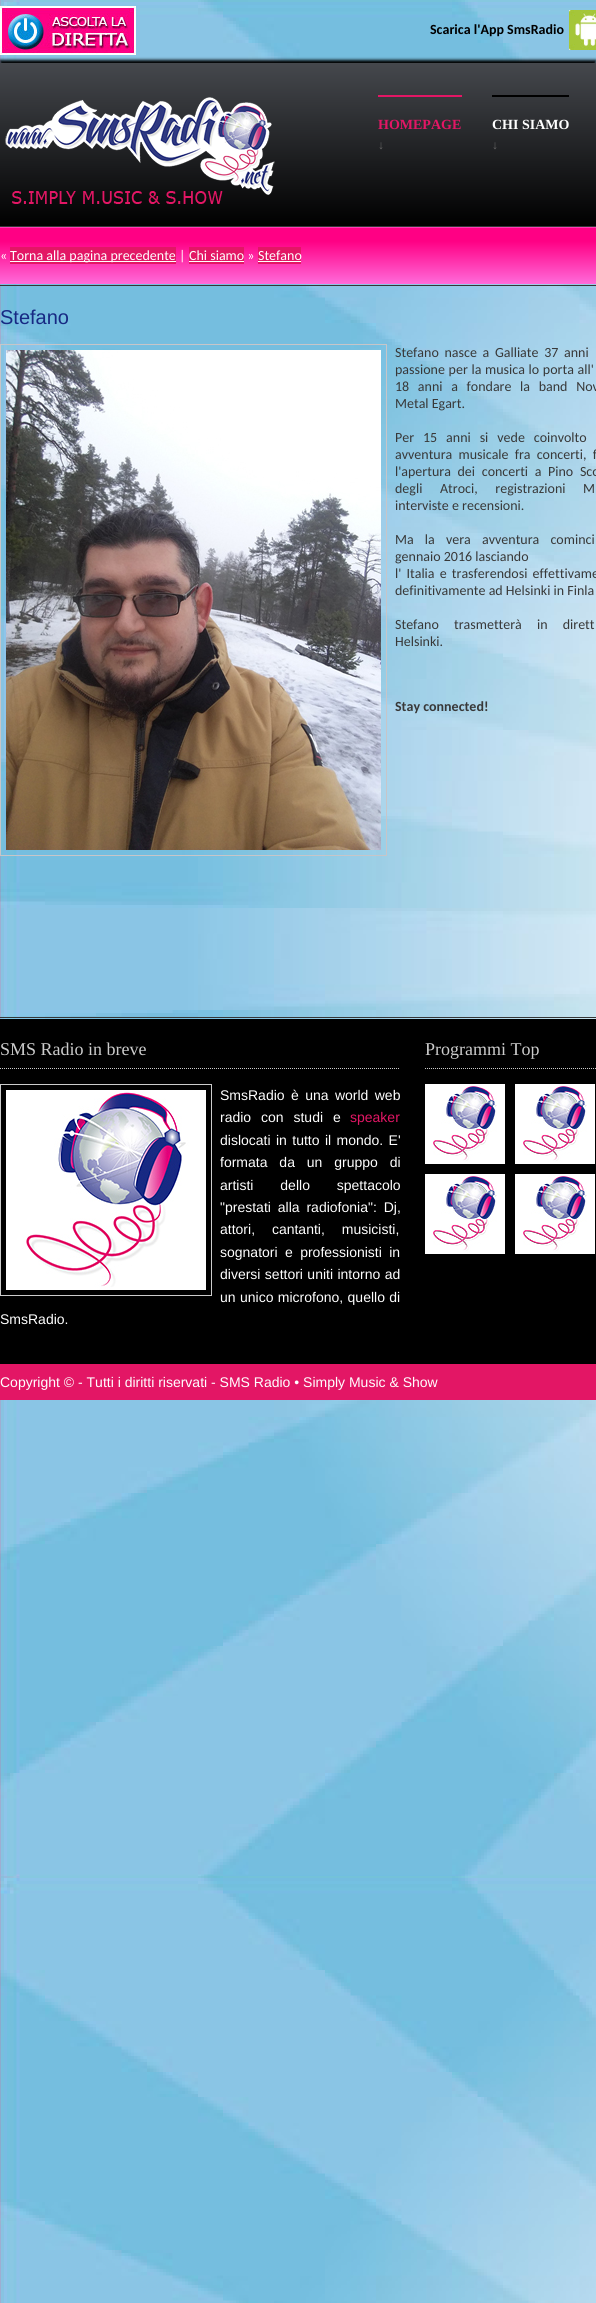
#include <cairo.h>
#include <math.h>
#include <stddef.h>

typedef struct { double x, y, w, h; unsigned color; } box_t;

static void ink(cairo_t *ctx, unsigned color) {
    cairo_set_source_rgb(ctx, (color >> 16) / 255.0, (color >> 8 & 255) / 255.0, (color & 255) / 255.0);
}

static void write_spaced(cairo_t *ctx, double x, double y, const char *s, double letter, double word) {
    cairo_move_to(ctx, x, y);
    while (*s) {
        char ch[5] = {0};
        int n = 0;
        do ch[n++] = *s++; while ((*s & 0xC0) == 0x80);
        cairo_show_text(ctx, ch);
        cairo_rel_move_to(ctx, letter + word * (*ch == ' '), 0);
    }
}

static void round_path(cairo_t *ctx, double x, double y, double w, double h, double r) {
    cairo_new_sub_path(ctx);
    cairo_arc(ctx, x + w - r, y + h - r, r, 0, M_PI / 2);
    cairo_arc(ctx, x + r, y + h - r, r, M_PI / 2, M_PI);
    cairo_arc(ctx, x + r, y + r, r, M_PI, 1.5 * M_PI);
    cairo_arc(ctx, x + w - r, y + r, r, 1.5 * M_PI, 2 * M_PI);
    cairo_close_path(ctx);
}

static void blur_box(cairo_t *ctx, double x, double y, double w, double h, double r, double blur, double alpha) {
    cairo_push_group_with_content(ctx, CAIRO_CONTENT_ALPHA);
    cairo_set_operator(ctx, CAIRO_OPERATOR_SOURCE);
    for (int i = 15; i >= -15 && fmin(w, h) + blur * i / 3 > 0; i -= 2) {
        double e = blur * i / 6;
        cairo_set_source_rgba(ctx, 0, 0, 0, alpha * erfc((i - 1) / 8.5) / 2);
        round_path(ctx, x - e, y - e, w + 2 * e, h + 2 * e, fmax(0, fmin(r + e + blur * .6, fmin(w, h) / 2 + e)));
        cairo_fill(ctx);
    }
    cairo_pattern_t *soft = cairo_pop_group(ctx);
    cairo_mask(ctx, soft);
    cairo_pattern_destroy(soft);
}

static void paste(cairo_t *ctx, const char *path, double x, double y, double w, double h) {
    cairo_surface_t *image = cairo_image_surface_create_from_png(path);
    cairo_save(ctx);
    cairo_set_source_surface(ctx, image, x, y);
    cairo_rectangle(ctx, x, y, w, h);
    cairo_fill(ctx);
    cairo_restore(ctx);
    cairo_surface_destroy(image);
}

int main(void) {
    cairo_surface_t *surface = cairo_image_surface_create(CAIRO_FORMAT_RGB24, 596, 2303);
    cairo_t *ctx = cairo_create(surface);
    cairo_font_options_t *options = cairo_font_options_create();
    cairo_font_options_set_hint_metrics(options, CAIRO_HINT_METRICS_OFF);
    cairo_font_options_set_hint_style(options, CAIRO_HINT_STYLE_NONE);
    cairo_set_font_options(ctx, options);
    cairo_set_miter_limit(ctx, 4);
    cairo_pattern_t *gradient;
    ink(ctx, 0xFFFFFF);
    cairo_paint(ctx);
    paste(ctx, "media/1.png", 0, 0, 596, 2303);
    ink(ctx, 0x000000);
    blur_box(ctx, 0, 60, 596, 164, 0, 1.5, 1);
    paste(ctx, "media/2.png", 0, 6, 136, 49);
    cairo_select_font_face(ctx, "Carlito", CAIRO_FONT_SLANT_NORMAL, CAIRO_FONT_WEIGHT_BOLD);
    cairo_set_font_size(ctx, 14);
    ink(ctx, 0x000000);
    cairo_move_to(ctx, 430, 34);
    cairo_show_text(ctx, "Scarica l'App SmsRadio");
    paste(ctx, "media/3.png", 569, 10, 27, 40);
    gradient = cairo_pattern_create_linear(298, 63, 298, 226);
    cairo_pattern_add_color_stop_rgba(gradient, 0, 0.271, 0.282, 0.302, 1);
    cairo_pattern_add_color_stop_rgba(gradient, 1, 0, 0, 0, 1);
    cairo_set_source(ctx, gradient);
    cairo_pattern_destroy(gradient);
    cairo_rectangle(ctx, 0, 63, 596, 163);
    cairo_fill(ctx);
    ink(ctx, 0x363636);
    cairo_rectangle(ctx, 0, 226, 596, 1);
    cairo_fill(ctx);
    paste(ctx, "media/4.png", 5, 97, 270, 107);
    ink(ctx, 0xE31665);
    cairo_rectangle(ctx, 378, 95, 84, 2);
    cairo_fill(ctx);
    cairo_select_font_face(ctx, "Liberation Serif", CAIRO_FONT_SLANT_NORMAL, CAIRO_FONT_WEIGHT_BOLD);
    cairo_move_to(ctx, 378, 129);
    cairo_show_text(ctx, "HOMEPAGE");
    cairo_select_font_face(ctx, "Liberation Sans", CAIRO_FONT_SLANT_NORMAL, CAIRO_FONT_WEIGHT_NORMAL);
    cairo_set_font_size(ctx, 12);
    ink(ctx, 0x666666);
    cairo_move_to(ctx, 378, 149);
    cairo_show_text(ctx, "↓");
    ink(ctx, 0x000000);
    cairo_rectangle(ctx, 492, 95, 77, 2);
    cairo_fill(ctx);
    cairo_select_font_face(ctx, "Liberation Serif", CAIRO_FONT_SLANT_NORMAL, CAIRO_FONT_WEIGHT_BOLD);
    cairo_set_font_size(ctx, 14);
    ink(ctx, 0xFFFFFF);
    cairo_move_to(ctx, 492, 129);
    cairo_show_text(ctx, "CHI SIAMO");
    cairo_select_font_face(ctx, "Liberation Sans", CAIRO_FONT_SLANT_NORMAL, CAIRO_FONT_WEIGHT_NORMAL);
    cairo_set_font_size(ctx, 12);
    ink(ctx, 0x666666);
    cairo_move_to(ctx, 492, 149);
    cairo_show_text(ctx, "↓");
    gradient = cairo_pattern_create_linear(298, 227, 298, 284);
    cairo_pattern_add_color_stop_rgba(gradient, 0, 1, 0.42, 0.855, 1);
    cairo_pattern_add_color_stop_rgba(gradient, 0.02, 1, 0, 0.518, 1);
    cairo_pattern_add_color_stop_rgba(gradient, 0.25, 1, 0, 0.518, 1);
    cairo_pattern_add_color_stop_rgba(gradient, 1, 1, 0.42, 0.855, 1);
    cairo_set_source(ctx, gradient);
    cairo_pattern_destroy(gradient);
    cairo_rectangle(ctx, 0, 227, 596, 57);
    cairo_fill(ctx);
    cairo_select_font_face(ctx, "Carlito", CAIRO_FONT_SLANT_NORMAL, CAIRO_FONT_WEIGHT_NORMAL);
    cairo_set_font_size(ctx, 14);
    ink(ctx, 0xFFFFFF);
    cairo_move_to(ctx, 0, 260);
    cairo_show_text(ctx, "«");
    ink(ctx, 0xE31665);
    cairo_rectangle(ctx, 10, 247, 166, 17);
    cairo_fill(ctx);
    ink(ctx, 0xFFFFFF);
    cairo_rectangle(ctx, 10, 261, 166, 1);
    cairo_fill(ctx);
    cairo_move_to(ctx, 10, 260);
    cairo_show_text(ctx, "Torna alla pagina precedente |");
    ink(ctx, 0xE31665);
    cairo_rectangle(ctx, 189, 247, 55, 17);
    cairo_fill(ctx);
    ink(ctx, 0xFFFFFF);
    cairo_move_to(ctx, 189, 260);
    cairo_show_text(ctx, "Chi siamo »");
    cairo_rectangle(ctx, 189, 261, 55, 1);
    cairo_fill(ctx);
    ink(ctx, 0xE31665);
    cairo_rectangle(ctx, 258, 247, 43, 17);
    cairo_fill(ctx);
    ink(ctx, 0xFFFFFF);
    cairo_move_to(ctx, 258, 260);
    cairo_show_text(ctx, "Stefano");
    {
        static const box_t items[] = {
            {258, 261, 43, 1, 0xFFFFFF},
            {0, 285, 596, 1, 0x363636},
            {0, 1017, 596, 1, 0x363636},
        };
        for (size_t i = 0; i < sizeof items / sizeof *items; i++) {
            ink(ctx, items[i].color);
            cairo_rectangle(ctx, items[i].x, items[i].y, items[i].w, items[i].h);
            cairo_fill(ctx);
        }
    }
    cairo_select_font_face(ctx, "Liberation Sans", CAIRO_FONT_SLANT_NORMAL, CAIRO_FONT_WEIGHT_NORMAL);
    cairo_set_font_size(ctx, 20);
    ink(ctx, 0x172983);
    cairo_move_to(ctx, 0, 324);
    cairo_show_text(ctx, "Stefano");
    cairo_rectangle(ctx, 0.5, 344.5, 386, 511);
    ink(ctx, 0xC7C5C8);
    cairo_set_line_width(ctx, 1);
    cairo_stroke(ctx);
    paste(ctx, "media/5.png", 6, 350, 375, 500);
    cairo_select_font_face(ctx, "Carlito", CAIRO_FONT_SLANT_NORMAL, CAIRO_FONT_WEIGHT_NORMAL);
    cairo_set_font_size(ctx, 14);
    ink(ctx, 0x383838);
    write_spaced(ctx, 395, 357, "Stefano nasce a Galliate 37 anni", 0, 2.5);
    write_spaced(ctx, 395, 374, "passione per la musica lo porta all'", 0, 0.5);
    write_spaced(ctx, 395, 391, "18 anni a fondare la band Nov", 0, 5.5);
    cairo_move_to(ctx, 395, 408);
    cairo_show_text(ctx, "Metal Egart.");
    write_spaced(ctx, 395, 442, "Per 15 anni si vede coinvolto", 0, 5.75);
    write_spaced(ctx, 395, 459, "avventura musicale fra concerti, f", 0, 3);
    write_spaced(ctx, 395, 476, "l'apertura dei concerti a Pino Sco", 0, 3.5);
    write_spaced(ctx, 395, 493, "degli Atroci, registrazioni M", 0, 14.5);
    cairo_move_to(ctx, 395, 510);
    cairo_show_text(ctx, "interviste e recensioni.");
    write_spaced(ctx, 395, 544, "Ma la vera avventura cominci", 0, 8);
    cairo_move_to(ctx, 395, 561);
    cairo_show_text(ctx, "gennaio 2016 lasciando");
    write_spaced(ctx, 395, 578, "l' Italia e trasferendosi effettivame", 0, 2);
    cairo_move_to(ctx, 395, 595);
    cairo_show_text(ctx, "definitivamente ad Helsinki in Finla");
    write_spaced(ctx, 395, 629, "Stefano trasmetterà in dirett", 0, 12);
    cairo_move_to(ctx, 395, 646);
    cairo_show_text(ctx, "Helsinki.");
    cairo_select_font_face(ctx, "Carlito", CAIRO_FONT_SLANT_NORMAL, CAIRO_FONT_WEIGHT_BOLD);
    cairo_move_to(ctx, 395, 711);
    cairo_show_text(ctx, "Stay connected!");
    ink(ctx, 0x000000);
    cairo_rectangle(ctx, 0, 1019, 596, 345);
    cairo_fill(ctx);
    cairo_new_path(ctx);
    cairo_move_to(ctx, 0, 1068.5);
    cairo_line_to(ctx, 400, 1068.5);
    ink(ctx, 0xCCCCCC);
    cairo_set_dash(ctx, (double[]){1, 1}, 2, 0);
    cairo_stroke(ctx);
    cairo_select_font_face(ctx, "Liberation Serif", CAIRO_FONT_SLANT_NORMAL, CAIRO_FONT_WEIGHT_NORMAL);
    cairo_set_font_size(ctx, 18);
    cairo_move_to(ctx, 0, 1055);
    cairo_show_text(ctx, "SMS Radio in breve");
    cairo_rectangle(ctx, 0.5, 1084.5, 211, 211);
    cairo_set_dash(ctx, NULL, 0, 0);
    cairo_stroke(ctx);
    paste(ctx, "media/6.png", 6, 1090, 200, 200);
    cairo_select_font_face(ctx, "Liberation Sans", CAIRO_FONT_SLANT_NORMAL, CAIRO_FONT_WEIGHT_NORMAL);
    cairo_set_font_size(ctx, 14);
    ink(ctx, 0xFFFFFF);
    write_spaced(ctx, 220, 1100, "SmsRadio è una world web", 0, 2.5);
    write_spaced(ctx, 220, 1122, "radio con studi e", 0, 6);
    ink(ctx, 0xE31665);
    cairo_move_to(ctx, 350, 1122);
    cairo_show_text(ctx, "speaker");
    ink(ctx, 0xFFFFFF);
    write_spaced(ctx, 220, 1145, "dislocati in tutto il mondo. E'", 0, 1.5);
    write_spaced(ctx, 220, 1167, "formata da un gruppo di", 0, 8);
    write_spaced(ctx, 220, 1190, "artisti dello spettacolo", 0, 23);
    write_spaced(ctx, 220, 1212, "\"prestati alla radiofonia\": Dj,", 0, 3);
    write_spaced(ctx, 220, 1234, "attori, cantanti, musicisti,", 0, 13);
    write_spaced(ctx, 220, 1257, "sognatori e professionisti in", 0, 3.5);
    write_spaced(ctx, 220, 1279, "diversi settori uniti intorno ad", 0, 0.5);
    write_spaced(ctx, 220, 1302, "un unico microfono, quello di", 0, 0.5);
    cairo_move_to(ctx, 0, 1324);
    cairo_show_text(ctx, "SmsRadio.");
    cairo_new_path(ctx);
    cairo_move_to(ctx, 425, 1068.5);
    cairo_line_to(ctx, 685, 1068.5);
    ink(ctx, 0xCCCCCC);
    cairo_set_dash(ctx, (double[]){1, 1}, 2, 0);
    cairo_stroke(ctx);
    cairo_select_font_face(ctx, "Liberation Serif", CAIRO_FONT_SLANT_NORMAL, CAIRO_FONT_WEIGHT_NORMAL);
    cairo_set_font_size(ctx, 18);
    cairo_move_to(ctx, 425, 1055);
    cairo_show_text(ctx, "Programmi Top");
    paste(ctx, "media/7.png", 425, 1084, 80, 80);
    paste(ctx, "media/7.png", 515, 1084, 80, 80);
    paste(ctx, "media/7.png", 425, 1174, 80, 80);
    paste(ctx, "media/7.png", 515, 1174, 80, 80);
    ink(ctx, 0xE31665);
    cairo_rectangle(ctx, 0, 1364, 596, 36);
    cairo_fill(ctx);
    cairo_select_font_face(ctx, "Liberation Sans", CAIRO_FONT_SLANT_NORMAL, CAIRO_FONT_WEIGHT_NORMAL);
    cairo_set_font_size(ctx, 14);
    ink(ctx, 0xFFFFFF);
    cairo_move_to(ctx, 0, 1387);
    cairo_show_text(ctx, "Copyright © - Tutti i diritti riservati - SMS Radio • Simply Music & Show");
    cairo_surface_write_to_png(surface, "image.png");
    cairo_font_options_destroy(options);
    cairo_destroy(ctx);
    cairo_surface_destroy(surface);
    return 0;
}
